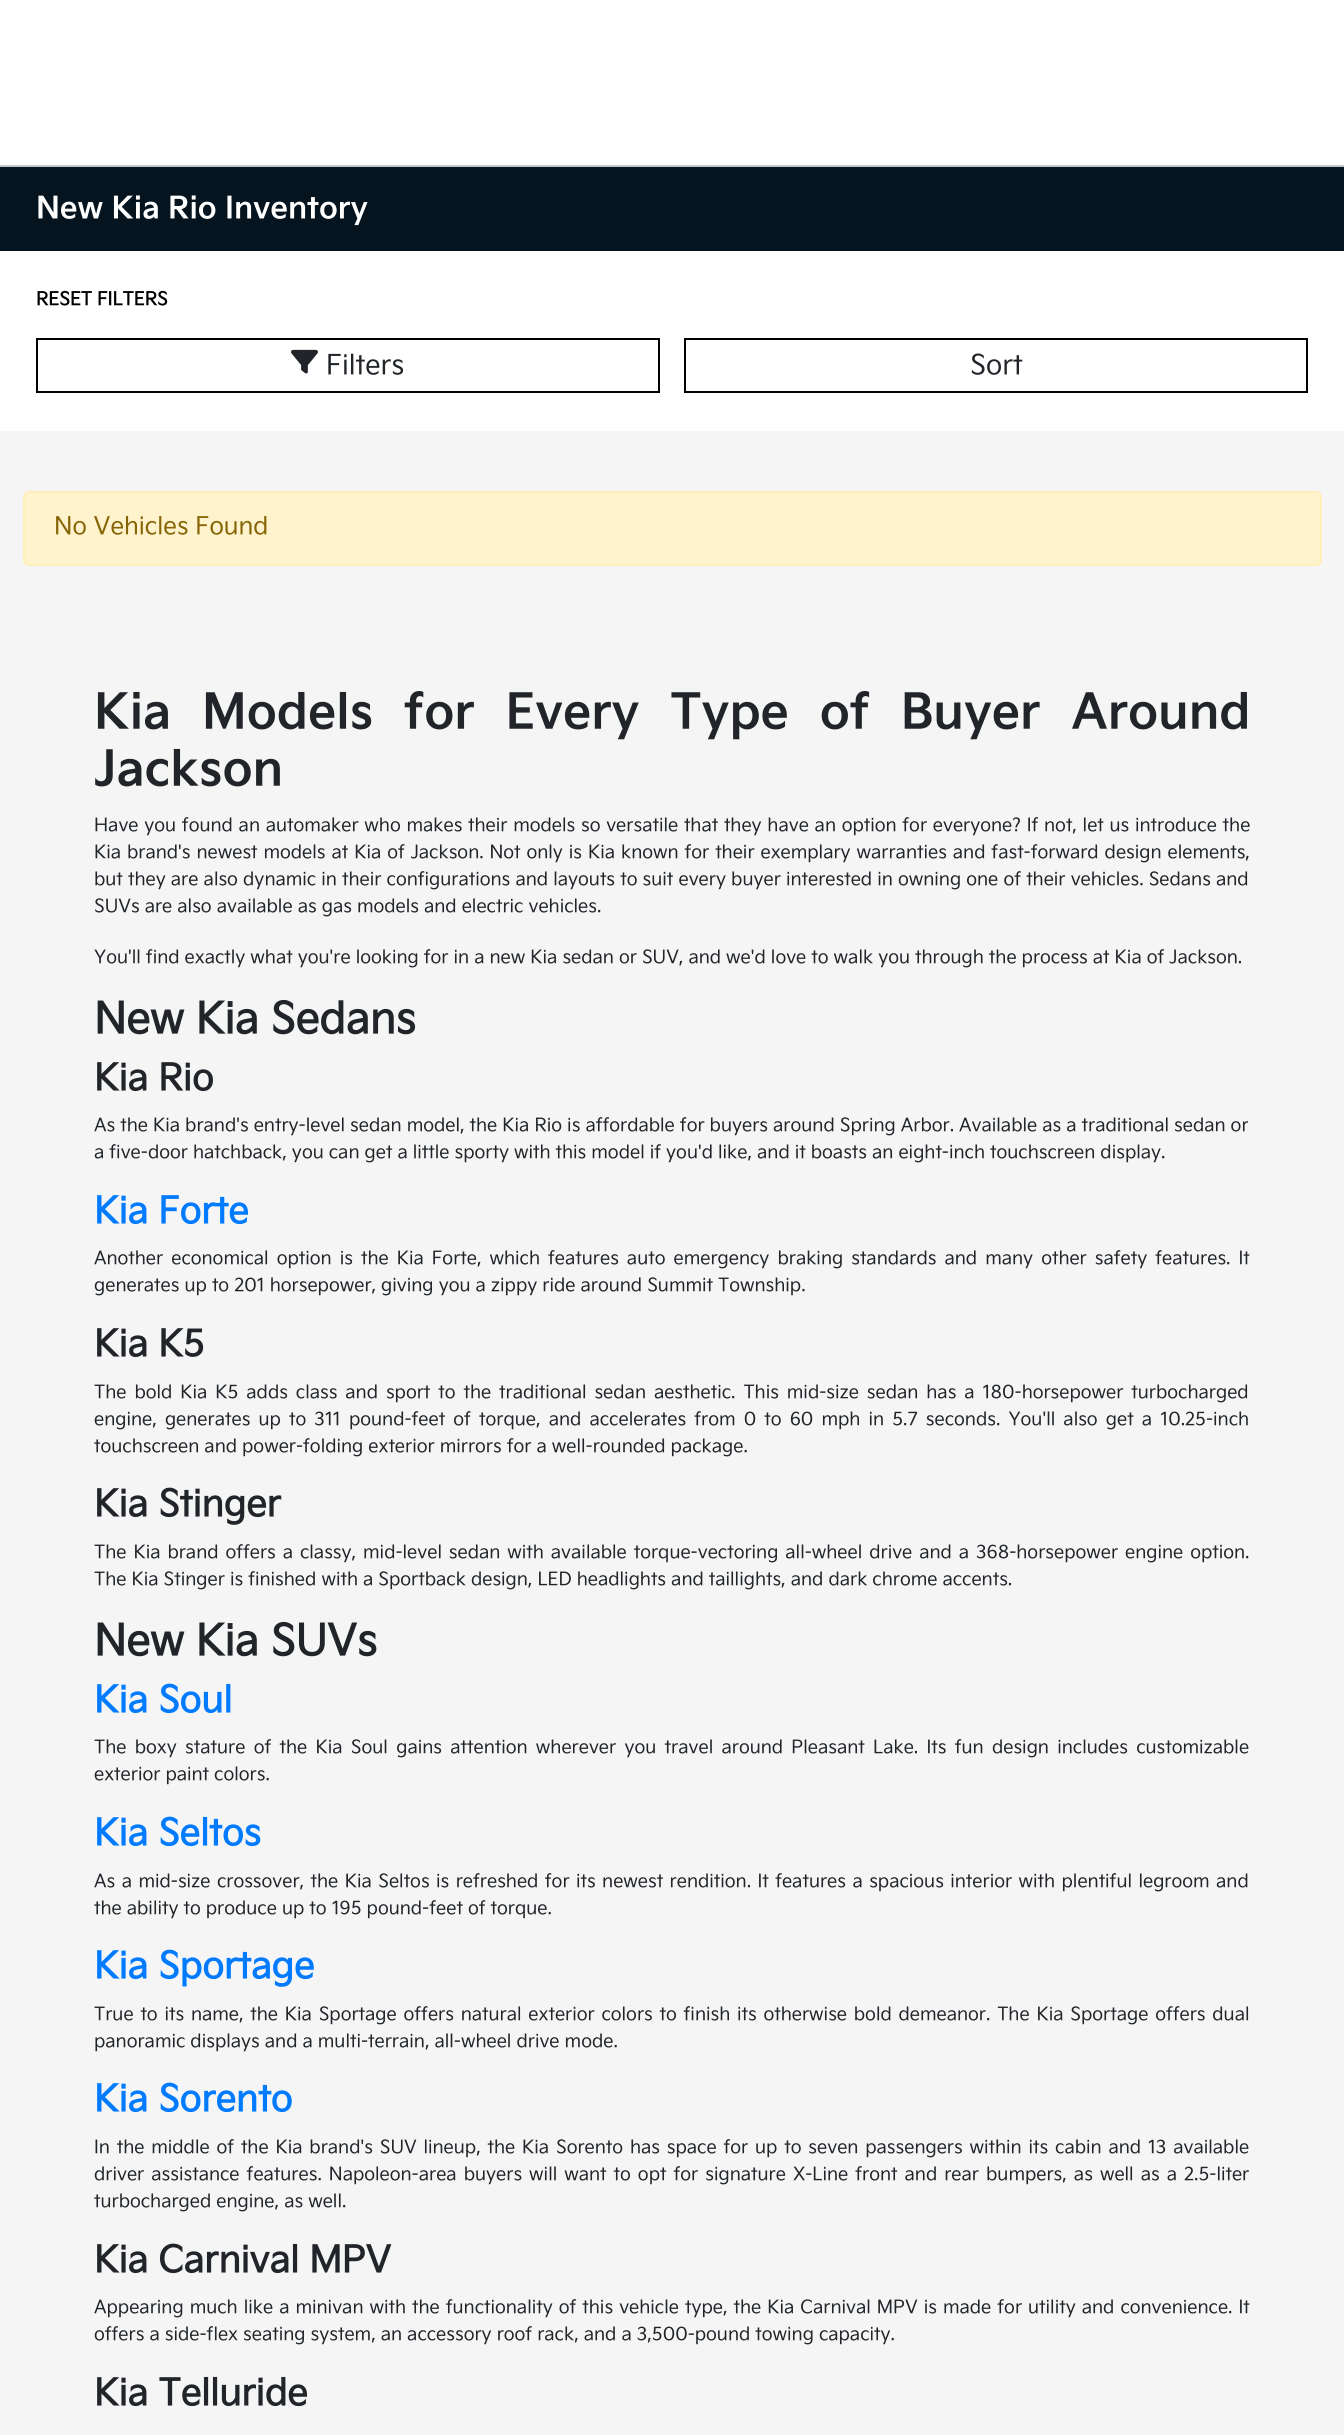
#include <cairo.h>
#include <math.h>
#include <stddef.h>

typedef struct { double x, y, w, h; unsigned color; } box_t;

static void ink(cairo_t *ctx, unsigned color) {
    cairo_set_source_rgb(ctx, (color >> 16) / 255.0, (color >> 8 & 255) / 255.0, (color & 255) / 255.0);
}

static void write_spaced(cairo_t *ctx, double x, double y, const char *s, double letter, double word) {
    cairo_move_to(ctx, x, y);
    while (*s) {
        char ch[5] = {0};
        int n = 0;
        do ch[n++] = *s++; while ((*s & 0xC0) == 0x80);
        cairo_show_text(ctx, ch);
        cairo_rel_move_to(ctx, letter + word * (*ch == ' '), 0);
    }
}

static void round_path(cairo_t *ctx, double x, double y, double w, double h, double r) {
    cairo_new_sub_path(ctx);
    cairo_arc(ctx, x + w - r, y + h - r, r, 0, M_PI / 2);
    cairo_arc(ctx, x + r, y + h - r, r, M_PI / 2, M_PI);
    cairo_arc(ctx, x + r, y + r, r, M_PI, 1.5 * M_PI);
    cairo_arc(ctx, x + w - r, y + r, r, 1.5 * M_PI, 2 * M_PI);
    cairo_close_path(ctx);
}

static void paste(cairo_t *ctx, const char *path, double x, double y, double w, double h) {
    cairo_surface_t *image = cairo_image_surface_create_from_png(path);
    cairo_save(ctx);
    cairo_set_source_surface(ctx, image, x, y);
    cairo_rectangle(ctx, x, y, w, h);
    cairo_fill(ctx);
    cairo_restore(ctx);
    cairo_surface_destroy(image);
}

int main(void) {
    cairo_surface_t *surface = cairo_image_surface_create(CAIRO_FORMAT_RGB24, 1344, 2435);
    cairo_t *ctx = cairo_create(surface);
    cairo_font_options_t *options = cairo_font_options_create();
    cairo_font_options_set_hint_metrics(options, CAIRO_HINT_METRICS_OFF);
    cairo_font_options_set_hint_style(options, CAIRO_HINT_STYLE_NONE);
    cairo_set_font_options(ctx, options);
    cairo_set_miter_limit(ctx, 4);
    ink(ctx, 0xFFFFFF);
    cairo_paint(ctx);
    {
        static const box_t items[] = {
            {0, 431, 1344, 2004, 0xF5F5F5},
            {0, 167, 1344, 84, 0x05141F},
            {0, 165, 1344, 2, 0xC6C6C6},
        };
        for (size_t i = 0; i < sizeof items / sizeof *items; i++) {
            ink(ctx, items[i].color);
            cairo_rectangle(ctx, items[i].x, items[i].y, items[i].w, items[i].h);
            cairo_fill(ctx);
        }
    }
    cairo_select_font_face(ctx, "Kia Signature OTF", CAIRO_FONT_SLANT_NORMAL, CAIRO_FONT_WEIGHT_BOLD);
    cairo_set_font_size(ctx, 30);
    ink(ctx, 0xFFFFFF);
    cairo_move_to(ctx, 36, 218);
    cairo_show_text(ctx, "New Kia Rio Inventory");
    cairo_select_font_face(ctx, "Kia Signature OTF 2", CAIRO_FONT_SLANT_NORMAL, CAIRO_FONT_WEIGHT_BOLD);
    cairo_set_font_size(ctx, 18);
    ink(ctx, 0x000000);
    cairo_move_to(ctx, 36, 305);
    cairo_show_text(ctx, "RESET FILTERS");
    cairo_rectangle(ctx, 37, 339, 622, 53);
    cairo_stroke(ctx);
    paste(ctx, "media/1.png", 291, 349, 27, 25);
    cairo_select_font_face(ctx, "Kia Signature OTF", CAIRO_FONT_SLANT_NORMAL, CAIRO_FONT_WEIGHT_NORMAL);
    cairo_set_font_size(ctx, 27);
    ink(ctx, 0x212529);
    cairo_move_to(ctx, 326, 374);
    cairo_show_text(ctx, "Filters");
    cairo_rectangle(ctx, 685, 339, 622, 53);
    ink(ctx, 0x000000);
    cairo_stroke(ctx);
    ink(ctx, 0x212529);
    cairo_move_to(ctx, 970, 374);
    cairo_show_text(ctx, "Sort");
    ink(ctx, 0xFFF3CD);
    round_path(ctx, 24, 492, 1297, 73, 5);
    cairo_fill_preserve(ctx);
    ink(ctx, 0xFFEEBA);
    cairo_stroke(ctx);
    cairo_set_font_size(ctx, 24);
    ink(ctx, 0x856404);
    cairo_move_to(ctx, 54, 534);
    cairo_show_text(ctx, "No Vehicles Found");
    cairo_select_font_face(ctx, "Kia Signature OTF", CAIRO_FONT_SLANT_NORMAL, CAIRO_FONT_WEIGHT_BOLD);
    cairo_set_font_size(ctx, 48);
    ink(ctx, 0x212529);
    write_spaced(ctx, 94, 728, "Kia Models for Every Type of Buyer Around", 0, 17.5);
    cairo_move_to(ctx, 94, 785);
    cairo_show_text(ctx, "Jackson");
    cairo_select_font_face(ctx, "Kia Signature OTF", CAIRO_FONT_SLANT_NORMAL, CAIRO_FONT_WEIGHT_NORMAL);
    cairo_set_font_size(ctx, 18);
    write_spaced(ctx, 94, 831, "Have you found an automaker who makes their models so versatile that they have an option for everyone? If not, let us introduce the", 0, 0.7);
    write_spaced(ctx, 94, 858, "Kia brand's newest models at Kia of Jackson. Not only is Kia known for their exemplary warranties and fast-forward design elements,", 0, 0.9);
    write_spaced(ctx, 94, 885, "but they are also dynamic in their configurations and layouts to suit every buyer interested in owning one of their vehicles. Sedans and", 0, 0.1);
    cairo_move_to(ctx, 94, 912);
    cairo_show_text(ctx, "SUVs are also available as gas models and electric vehicles.");
    cairo_move_to(ctx, 94, 963);
    cairo_show_text(ctx, "You'll find exactly what you're looking for in a new Kia sedan or SUV, and we'd love to walk you through the process at Kia of Jackson.");
    cairo_select_font_face(ctx, "Kia Signature OTF 2", CAIRO_FONT_SLANT_NORMAL, CAIRO_FONT_WEIGHT_BOLD);
    cairo_set_font_size(ctx, 42);
    cairo_move_to(ctx, 94, 1033);
    cairo_show_text(ctx, "New Kia Sedans");
    cairo_set_font_size(ctx, 36);
    cairo_move_to(ctx, 94, 1090);
    cairo_show_text(ctx, "Kia Rio");
    cairo_select_font_face(ctx, "Kia Signature OTF", CAIRO_FONT_SLANT_NORMAL, CAIRO_FONT_WEIGHT_NORMAL);
    cairo_set_font_size(ctx, 18);
    cairo_move_to(ctx, 94, 1131);
    cairo_show_text(ctx, "As the Kia brand's entry-level sedan model, the Kia Rio is affordable for buyers around Spring Arbor. Available as a traditional sedan or");
    cairo_move_to(ctx, 94, 1158);
    cairo_show_text(ctx, "a five-door hatchback, you can get a little sporty with this model if you'd like, and it boasts an eight-inch touchscreen display.");
    cairo_select_font_face(ctx, "Kia Signature OTF 2", CAIRO_FONT_SLANT_NORMAL, CAIRO_FONT_WEIGHT_BOLD);
    cairo_set_font_size(ctx, 36);
    ink(ctx, 0x007BFF);
    cairo_move_to(ctx, 94, 1223);
    cairo_show_text(ctx, "Kia Forte");
    cairo_select_font_face(ctx, "Kia Signature OTF", CAIRO_FONT_SLANT_NORMAL, CAIRO_FONT_WEIGHT_NORMAL);
    cairo_set_font_size(ctx, 18);
    ink(ctx, 0x212529);
    write_spaced(ctx, 94, 1264, "Another economical option is the Kia Forte, which features auto emergency braking standards and many other safety features. It", 0, 3);
    cairo_move_to(ctx, 94, 1291);
    cairo_show_text(ctx, "generates up to 201 horsepower, giving you a zippy ride around Summit Township.");
    cairo_select_font_face(ctx, "Kia Signature OTF 2", CAIRO_FONT_SLANT_NORMAL, CAIRO_FONT_WEIGHT_BOLD);
    cairo_set_font_size(ctx, 36);
    cairo_move_to(ctx, 94, 1356);
    cairo_show_text(ctx, "Kia K5");
    cairo_select_font_face(ctx, "Kia Signature OTF", CAIRO_FONT_SLANT_NORMAL, CAIRO_FONT_WEIGHT_NORMAL);
    cairo_set_font_size(ctx, 18);
    write_spaced(ctx, 94, 1398, "The bold Kia K5 adds class and sport to the traditional sedan aesthetic. This mid-size sedan has a 180-horsepower turbocharged", 0, 2.9);
    write_spaced(ctx, 94, 1425, "engine, generates up to 311 pound-feet of torque, and accelerates from 0 to 60 mph in 5.7 seconds. You'll also get a 10.25-inch", 0, 3.1);
    cairo_move_to(ctx, 94, 1452);
    cairo_show_text(ctx, "touchscreen and power-folding exterior mirrors for a well-rounded package.");
    cairo_select_font_face(ctx, "Kia Signature OTF 2", CAIRO_FONT_SLANT_NORMAL, CAIRO_FONT_WEIGHT_BOLD);
    cairo_set_font_size(ctx, 36);
    cairo_move_to(ctx, 94, 1516);
    cairo_show_text(ctx, "Kia Stinger");
    cairo_select_font_face(ctx, "Kia Signature OTF", CAIRO_FONT_SLANT_NORMAL, CAIRO_FONT_WEIGHT_NORMAL);
    cairo_set_font_size(ctx, 18);
    write_spaced(ctx, 94, 1558, "The Kia brand offers a classy, mid-level sedan with available torque-vectoring all-wheel drive and a 368-horsepower engine option.", 0, 1.9);
    cairo_move_to(ctx, 94, 1585);
    cairo_show_text(ctx, "The Kia Stinger is finished with a Sportback design, LED headlights and taillights, and dark chrome accents.");
    cairo_select_font_face(ctx, "Kia Signature OTF 2", CAIRO_FONT_SLANT_NORMAL, CAIRO_FONT_WEIGHT_BOLD);
    cairo_set_font_size(ctx, 42);
    cairo_move_to(ctx, 94, 1655);
    cairo_show_text(ctx, "New Kia SUVs");
    cairo_set_font_size(ctx, 36);
    ink(ctx, 0x007BFF);
    cairo_move_to(ctx, 94, 1712);
    cairo_show_text(ctx, "Kia Soul");
    cairo_select_font_face(ctx, "Kia Signature OTF", CAIRO_FONT_SLANT_NORMAL, CAIRO_FONT_WEIGHT_NORMAL);
    cairo_set_font_size(ctx, 18);
    ink(ctx, 0x212529);
    write_spaced(ctx, 94, 1753, "The boxy stature of the Kia Soul gains attention wherever you travel around Pleasant Lake. Its fun design includes customizable", 0, 3.25);
    cairo_move_to(ctx, 94, 1780);
    cairo_show_text(ctx, "exterior paint colors.");
    cairo_select_font_face(ctx, "Kia Signature OTF 2", CAIRO_FONT_SLANT_NORMAL, CAIRO_FONT_WEIGHT_BOLD);
    cairo_set_font_size(ctx, 36);
    ink(ctx, 0x007BFF);
    cairo_move_to(ctx, 94, 1845);
    cairo_show_text(ctx, "Kia Seltos");
    cairo_select_font_face(ctx, "Kia Signature OTF", CAIRO_FONT_SLANT_NORMAL, CAIRO_FONT_WEIGHT_NORMAL);
    cairo_set_font_size(ctx, 18);
    ink(ctx, 0x212529);
    write_spaced(ctx, 94, 1887, "As a mid-size crossover, the Kia Seltos is refreshed for its newest rendition. It features a spacious interior with plentiful legroom and", 0, 1.4);
    cairo_move_to(ctx, 94, 1914);
    cairo_show_text(ctx, "the ability to produce up to 195 pound-feet of torque.");
    cairo_select_font_face(ctx, "Kia Signature OTF 2", CAIRO_FONT_SLANT_NORMAL, CAIRO_FONT_WEIGHT_BOLD);
    cairo_set_font_size(ctx, 36);
    ink(ctx, 0x007BFF);
    cairo_move_to(ctx, 94, 1978);
    cairo_show_text(ctx, "Kia Sportage");
    cairo_select_font_face(ctx, "Kia Signature OTF", CAIRO_FONT_SLANT_NORMAL, CAIRO_FONT_WEIGHT_NORMAL);
    cairo_set_font_size(ctx, 18);
    ink(ctx, 0x212529);
    write_spaced(ctx, 94, 2020, "True to its name, the Kia Sportage offers natural exterior colors to finish its otherwise bold demeanor. The Kia Sportage offers dual", 0, 1.75);
    cairo_move_to(ctx, 94, 2047);
    cairo_show_text(ctx, "panoramic displays and a multi-terrain, all-wheel drive mode.");
    cairo_select_font_face(ctx, "Kia Signature OTF 2", CAIRO_FONT_SLANT_NORMAL, CAIRO_FONT_WEIGHT_BOLD);
    cairo_set_font_size(ctx, 36);
    ink(ctx, 0x007BFF);
    cairo_move_to(ctx, 94, 2111);
    cairo_show_text(ctx, "Kia Sorento");
    cairo_select_font_face(ctx, "Kia Signature OTF", CAIRO_FONT_SLANT_NORMAL, CAIRO_FONT_WEIGHT_NORMAL);
    cairo_set_font_size(ctx, 18);
    ink(ctx, 0x212529);
    write_spaced(ctx, 94, 2153, "In the middle of the Kia brand's SUV lineup, the Kia Sorento has space for up to seven passengers within its cabin and 13 available", 0, 1.8);
    write_spaced(ctx, 94, 2180, "driver assistance features. Napoleon-area buyers will want to opt for signature X-Line front and rear bumpers, as well as a 2.5-liter", 0, 2);
    cairo_move_to(ctx, 94, 2207);
    cairo_show_text(ctx, "turbocharged engine, as well.");
    cairo_select_font_face(ctx, "Kia Signature OTF 2", CAIRO_FONT_SLANT_NORMAL, CAIRO_FONT_WEIGHT_BOLD);
    cairo_set_font_size(ctx, 36);
    cairo_move_to(ctx, 94, 2272);
    cairo_show_text(ctx, "Kia Carnival MPV");
    cairo_select_font_face(ctx, "Kia Signature OTF", CAIRO_FONT_SLANT_NORMAL, CAIRO_FONT_WEIGHT_NORMAL);
    cairo_set_font_size(ctx, 18);
    write_spaced(ctx, 94, 2313, "Appearing much like a minivan with the functionality of this vehicle type, the Kia Carnival MPV is made for utility and convenience. It", 0, 1);
    cairo_move_to(ctx, 94, 2340);
    cairo_show_text(ctx, "offers a side-flex seating system, an accessory roof rack, and a 3,500-pound towing capacity.");
    cairo_select_font_face(ctx, "Kia Signature OTF 2", CAIRO_FONT_SLANT_NORMAL, CAIRO_FONT_WEIGHT_BOLD);
    cairo_set_font_size(ctx, 36);
    cairo_move_to(ctx, 94, 2405);
    cairo_show_text(ctx, "Kia Telluride");
    cairo_surface_write_to_png(surface, "image.png");
    cairo_font_options_destroy(options);
    cairo_destroy(ctx);
    cairo_surface_destroy(surface);
    return 0;
}
